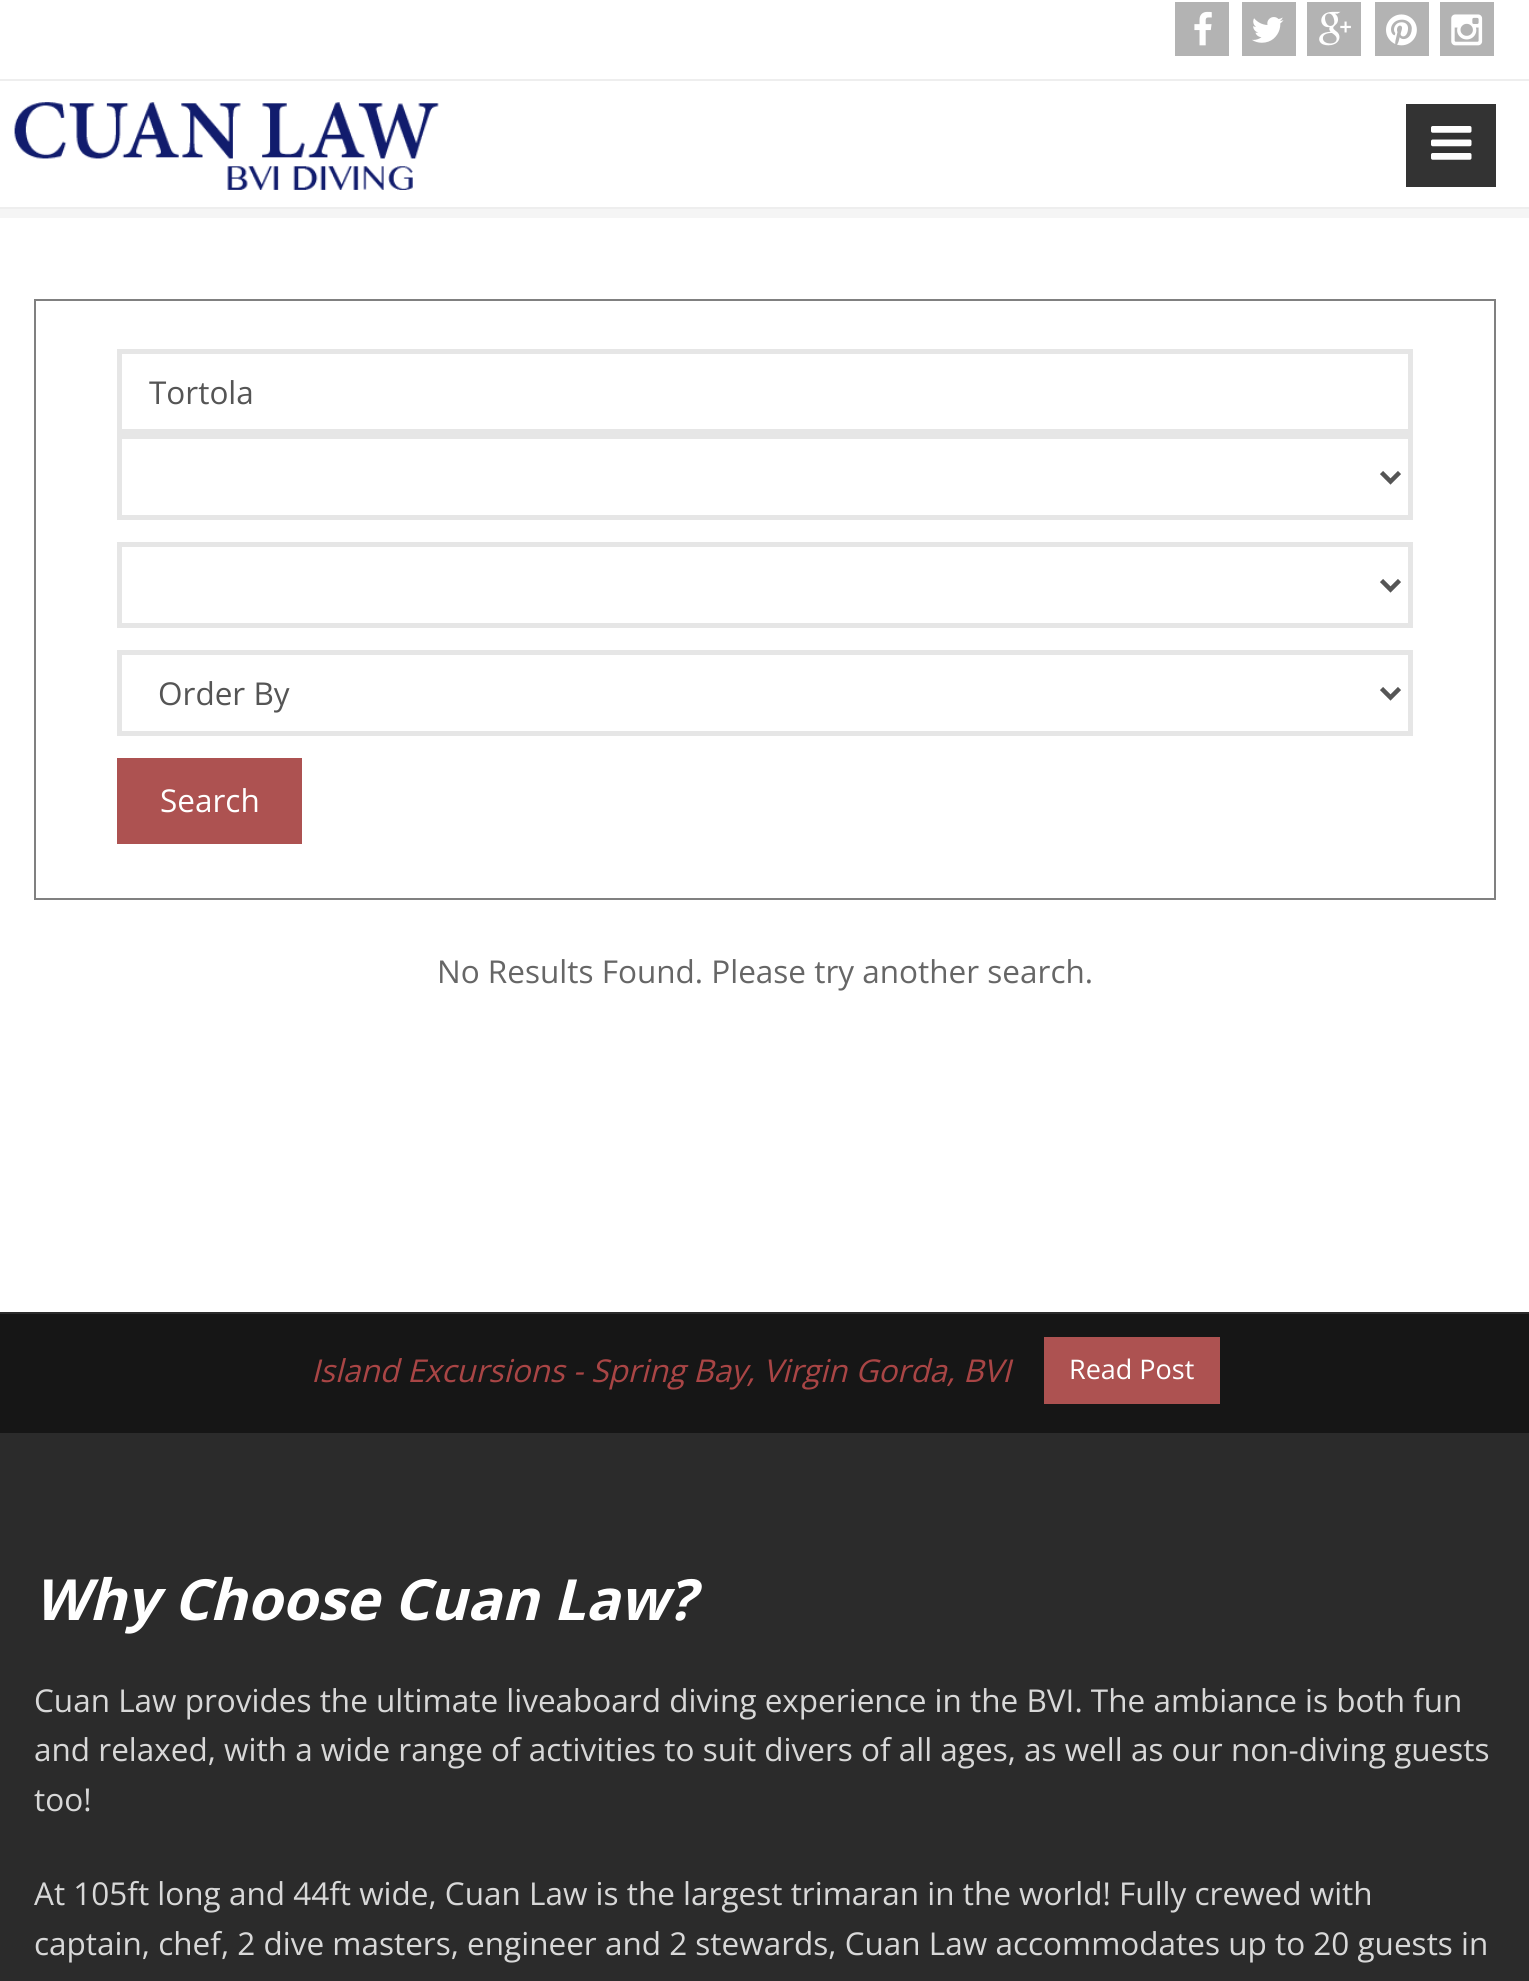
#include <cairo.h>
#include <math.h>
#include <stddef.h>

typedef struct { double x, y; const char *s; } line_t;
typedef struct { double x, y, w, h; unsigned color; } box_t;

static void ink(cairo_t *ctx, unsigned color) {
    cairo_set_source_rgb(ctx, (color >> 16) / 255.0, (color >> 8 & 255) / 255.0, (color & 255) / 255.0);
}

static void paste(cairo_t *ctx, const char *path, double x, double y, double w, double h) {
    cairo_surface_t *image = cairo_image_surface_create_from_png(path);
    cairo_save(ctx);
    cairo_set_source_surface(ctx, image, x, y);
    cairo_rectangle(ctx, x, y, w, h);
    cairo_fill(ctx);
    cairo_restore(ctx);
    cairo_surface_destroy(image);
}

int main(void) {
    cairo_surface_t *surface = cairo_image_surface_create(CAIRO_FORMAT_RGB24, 1529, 1981);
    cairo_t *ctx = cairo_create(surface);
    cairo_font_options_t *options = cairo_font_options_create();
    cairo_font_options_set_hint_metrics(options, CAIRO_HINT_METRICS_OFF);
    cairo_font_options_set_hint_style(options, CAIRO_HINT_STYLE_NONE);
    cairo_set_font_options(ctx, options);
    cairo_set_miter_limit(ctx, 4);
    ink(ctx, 0xFFFFFF);
    cairo_paint(ctx);
    ink(ctx, 0xB3B3B3);
    cairo_rectangle(ctx, 1175, 2, 54, 54);
    cairo_fill(ctx);
    paste(ctx, "media/1.png", 1194, 11, 18, 35);
    cairo_rectangle(ctx, 1242, 2, 54, 54);
    cairo_fill(ctx);
    paste(ctx, "media/2.png", 1252, 17, 32, 26);
    cairo_rectangle(ctx, 1307, 2, 54, 54);
    cairo_fill(ctx);
    paste(ctx, "media/3.png", 1319, 11, 32, 35);
    cairo_rectangle(ctx, 1375, 2, 54, 54);
    cairo_fill(ctx);
    paste(ctx, "media/4.png", 1386, 14, 31, 32);
    cairo_rectangle(ctx, 1440, 2, 54, 54);
    cairo_fill(ctx);
    paste(ctx, "media/5.png", 1451, 14, 32, 32);
    {
        static const box_t items[] = {
            {0, 209, 1529, 9, 0xF5F5F5},
            {0, 79, 1529, 2, 0xEEEEEE},
            {0, 207, 1529, 2, 0xEEEEEE},
        };
        for (size_t i = 0; i < sizeof items / sizeof *items; i++) {
            ink(ctx, items[i].color);
            cairo_rectangle(ctx, items[i].x, items[i].y, items[i].w, items[i].h);
            cairo_fill(ctx);
        }
    }
    paste(ctx, "media/6.png", 14, 102, 425, 88);
    ink(ctx, 0x333333);
    cairo_rectangle(ctx, 1406, 104, 90, 83);
    cairo_fill(ctx);
    paste(ctx, "media/7.png", 1431, 126, 41, 34);
    cairo_rectangle(ctx, 35, 300, 1460, 599);
    ink(ctx, 0x808080);
    cairo_stroke(ctx);
    cairo_rectangle(ctx, 119.5, 351.5, 1291, 80);
    ink(ctx, 0xE6E6E6);
    cairo_set_line_width(ctx, 5);
    cairo_stroke(ctx);
    cairo_save(ctx);
    cairo_rectangle(ctx, 149, 371, 1224, 43);
    cairo_clip(ctx);
    cairo_select_font_face(ctx, "Open Sans", CAIRO_FONT_SLANT_NORMAL, CAIRO_FONT_WEIGHT_NORMAL);
    cairo_set_font_size(ctx, 31.5);
    ink(ctx, 0x555555);
    cairo_move_to(ctx, 149, 404);
    cairo_show_text(ctx, "Tortola");
    cairo_restore(ctx);
    cairo_rectangle(ctx, 119.5, 436.5, 1291, 81);
    cairo_stroke(ctx);
    cairo_new_path(ctx);
    cairo_move_to(ctx, 1381.5, 472.5);
    cairo_line_to(ctx, 1390.5, 481.5);
    cairo_line_to(ctx, 1399.5, 472.5);
    ink(ctx, 0x555555);
    cairo_set_line_width(ctx, 4.5);
    cairo_stroke(ctx);
    cairo_rectangle(ctx, 119.5, 544.5, 1291, 81);
    ink(ctx, 0xE6E6E6);
    cairo_set_line_width(ctx, 5);
    cairo_stroke(ctx);
    cairo_new_path(ctx);
    cairo_move_to(ctx, 1381.5, 580.5);
    cairo_line_to(ctx, 1390.5, 589.5);
    cairo_line_to(ctx, 1399.5, 580.5);
    ink(ctx, 0x555555);
    cairo_set_line_width(ctx, 4.5);
    cairo_stroke(ctx);
    cairo_rectangle(ctx, 119.5, 652.5, 1291, 81);
    ink(ctx, 0xE6E6E6);
    cairo_set_line_width(ctx, 5);
    cairo_stroke(ctx);
    cairo_new_path(ctx);
    cairo_move_to(ctx, 1381.5, 688.5);
    cairo_line_to(ctx, 1390.5, 697.5);
    cairo_line_to(ctx, 1399.5, 688.5);
    ink(ctx, 0x555555);
    cairo_set_line_width(ctx, 4.5);
    cairo_stroke(ctx);
    cairo_select_font_face(ctx, "Open Sans", CAIRO_FONT_SLANT_NORMAL, CAIRO_FONT_WEIGHT_NORMAL);
    cairo_set_font_size(ctx, 31.5);
    cairo_move_to(ctx, 158, 705);
    cairo_show_text(ctx, "Order By");
    ink(ctx, 0xAD5251);
    cairo_rectangle(ctx, 117, 758, 185, 86);
    cairo_fill(ctx);
    ink(ctx, 0xFFFFFF);
    cairo_move_to(ctx, 160, 812);
    cairo_show_text(ctx, "Search");
    ink(ctx, 0x666666);
    cairo_move_to(ctx, 437, 983);
    cairo_show_text(ctx, "No Results Found. Please try another search.");
    ink(ctx, 0x2B2B2B);
    cairo_rectangle(ctx, 0, 1312, 1529, 669);
    cairo_fill(ctx);
    ink(ctx, 0x161616);
    cairo_rectangle(ctx, 0, 1314, 1529, 119);
    cairo_fill(ctx);
    cairo_select_font_face(ctx, "Open Sans", CAIRO_FONT_SLANT_ITALIC, CAIRO_FONT_WEIGHT_NORMAL);
    ink(ctx, 0xA94545);
    cairo_move_to(ctx, 311, 1382);
    cairo_show_text(ctx, "Island Excursions - Spring Bay, Virgin Gorda, BVI");
    ink(ctx, 0xAD5251);
    cairo_rectangle(ctx, 1044, 1337, 176, 67);
    cairo_fill(ctx);
    cairo_select_font_face(ctx, "Open Sans", CAIRO_FONT_SLANT_NORMAL, CAIRO_FONT_WEIGHT_NORMAL);
    cairo_set_font_size(ctx, 27);
    ink(ctx, 0xFFFFFF);
    cairo_move_to(ctx, 1069, 1379);
    cairo_show_text(ctx, "Read Post");
    cairo_select_font_face(ctx, "Open Sans", CAIRO_FONT_SLANT_ITALIC, CAIRO_FONT_WEIGHT_BOLD);
    cairo_set_font_size(ctx, 56.75);
    cairo_move_to(ctx, 34, 1620);
    cairo_show_text(ctx, "Why Choose Cuan Law?");
    cairo_select_font_face(ctx, "Open Sans", CAIRO_FONT_SLANT_NORMAL, CAIRO_FONT_WEIGHT_NORMAL);
    cairo_set_font_size(ctx, 31.5);
    ink(ctx, 0xD8D8D8);
    {
        static const line_t items[] = {
            {34, 1712, "Cuan Law provides the ultimate liveaboard diving experience in the BVI. The ambiance is both fun"},
            {34, 1761, "and relaxed, with a wide range of activities to suit divers of all ages, as well as our non-diving guests"},
            {34, 1811, "too!"},
            {34, 1905, "At 105ft long and 44ft wide, Cuan Law is the largest trimaran in the world! Fully crewed with"},
            {34, 1955, "captain, chef, 2 dive masters, engineer and 2 stewards, Cuan Law accommodates up to 20 guests in"},
        };
        for (size_t i = 0; i < sizeof items / sizeof *items; i++) {
            cairo_move_to(ctx, items[i].x, items[i].y);
            cairo_show_text(ctx, items[i].s);
        }
    }
    cairo_surface_write_to_png(surface, "image.png");
    cairo_font_options_destroy(options);
    cairo_destroy(ctx);
    cairo_surface_destroy(surface);
    return 0;
}
